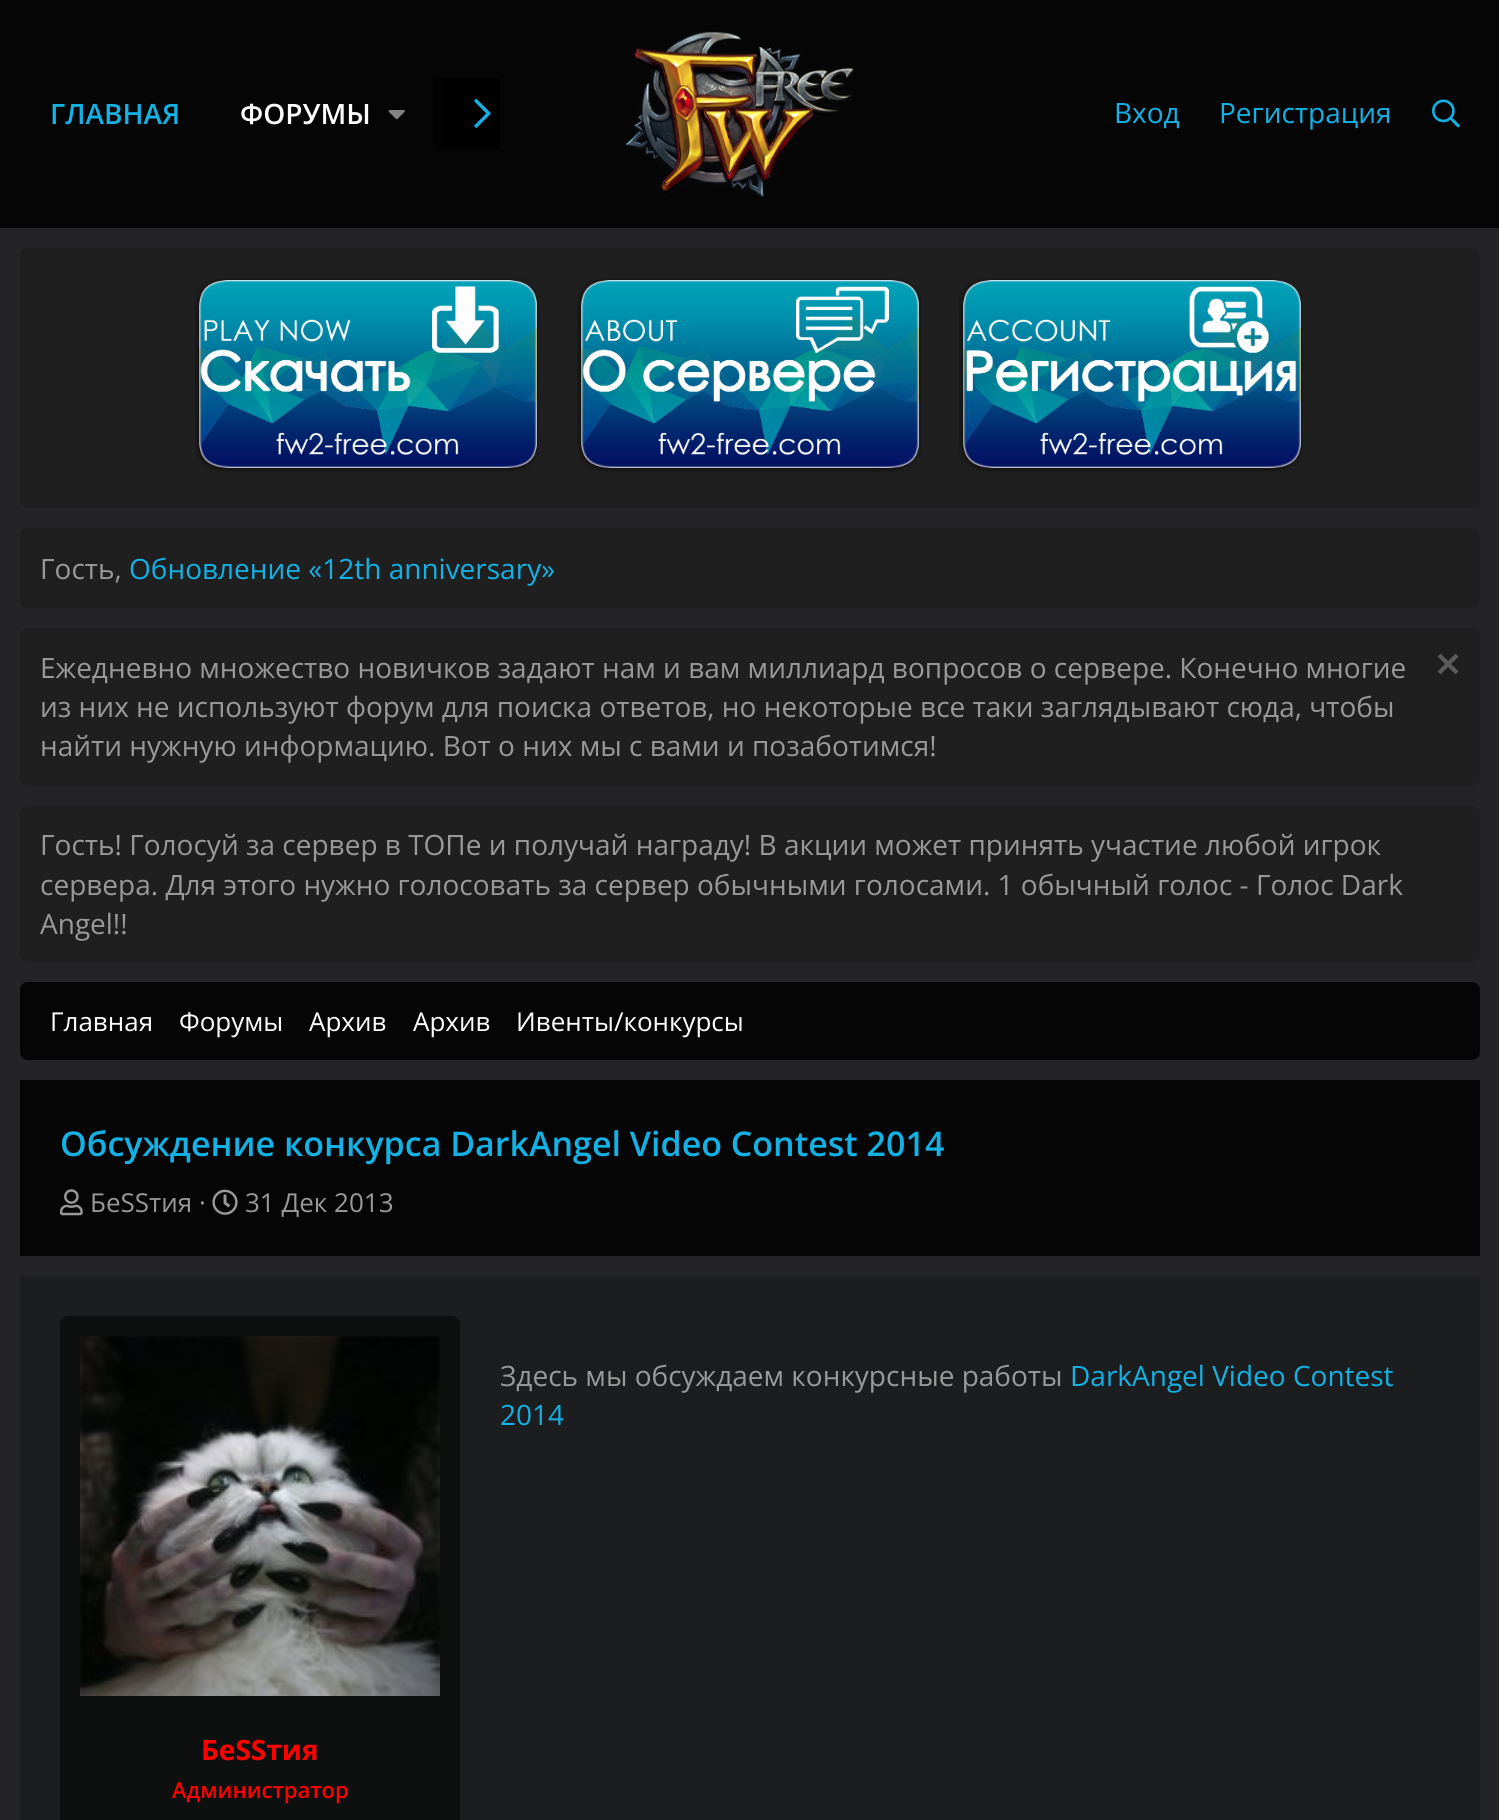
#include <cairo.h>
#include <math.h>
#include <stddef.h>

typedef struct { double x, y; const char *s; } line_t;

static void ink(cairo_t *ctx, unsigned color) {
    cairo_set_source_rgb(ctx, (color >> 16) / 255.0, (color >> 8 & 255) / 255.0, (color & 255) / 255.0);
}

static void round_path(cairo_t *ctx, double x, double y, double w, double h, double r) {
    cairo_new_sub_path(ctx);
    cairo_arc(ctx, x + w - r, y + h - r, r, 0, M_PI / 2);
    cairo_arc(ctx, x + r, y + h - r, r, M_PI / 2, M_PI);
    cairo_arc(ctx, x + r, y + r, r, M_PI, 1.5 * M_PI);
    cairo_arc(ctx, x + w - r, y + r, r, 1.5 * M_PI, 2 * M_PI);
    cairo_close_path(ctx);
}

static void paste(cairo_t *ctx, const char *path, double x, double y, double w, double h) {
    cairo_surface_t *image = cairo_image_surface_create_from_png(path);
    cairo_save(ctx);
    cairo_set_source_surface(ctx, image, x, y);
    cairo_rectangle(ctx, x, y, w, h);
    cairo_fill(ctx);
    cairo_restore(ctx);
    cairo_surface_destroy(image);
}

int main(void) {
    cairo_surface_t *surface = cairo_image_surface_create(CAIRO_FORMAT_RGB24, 1499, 1820);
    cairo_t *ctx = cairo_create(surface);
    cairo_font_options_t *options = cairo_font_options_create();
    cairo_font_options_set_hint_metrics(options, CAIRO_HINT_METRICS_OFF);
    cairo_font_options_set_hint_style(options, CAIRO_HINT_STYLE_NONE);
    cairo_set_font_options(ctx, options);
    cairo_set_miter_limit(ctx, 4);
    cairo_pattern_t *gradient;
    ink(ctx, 0x242426);
    cairo_paint(ctx);
    ink(ctx, 0x050506);
    cairo_rectangle(ctx, 0, 0, 1499, 228);
    cairo_fill(ctx);
    cairo_select_font_face(ctx, "Open Sans SemiBold", CAIRO_FONT_SLANT_NORMAL, CAIRO_FONT_WEIGHT_NORMAL);
    cairo_set_font_size(ctx, 28);
    ink(ctx, 0x13B1E4);
    cairo_move_to(ctx, 50, 124);
    cairo_show_text(ctx, "ГЛАВНАЯ");
    ink(ctx, 0xFFFFFF);
    cairo_move_to(ctx, 240, 124);
    cairo_show_text(ctx, "ФОРУМЫ");
    paste(ctx, "media/1.png", 388, 110, 17, 10);
    gradient = cairo_pattern_create_linear(420, 114, 500, 114);
    cairo_pattern_add_color_stop_rgba(gradient, 0, 0, 0, 0, 0);
    cairo_pattern_add_color_stop_rgba(gradient, 0.33, 0, 0, 0, 0.85);
    cairo_set_source(ctx, gradient);
    cairo_pattern_destroy(gradient);
    cairo_rectangle(ctx, 433, 78, 67, 72);
    cairo_fill(ctx);
    paste(ctx, "media/2.png", 474, 98, 17, 30);
    paste(ctx, "media/3.png", 625, 31, 229, 166);
    cairo_select_font_face(ctx, "Open Sans", CAIRO_FONT_SLANT_NORMAL, CAIRO_FONT_WEIGHT_NORMAL);
    ink(ctx, 0x13B1E4);
    cairo_move_to(ctx, 1114, 123);
    cairo_show_text(ctx, "Вход");
    cairo_move_to(ctx, 1219, 123);
    cairo_show_text(ctx, "Регистрация");
    paste(ctx, "media/4.png", 1432, 99, 28, 29);
    ink(ctx, 0x1F1F1F);
    round_path(ctx, 20, 248, 1460, 260, 8);
    cairo_fill(ctx);
    paste(ctx, "media/5.png", 195, 278, 344, 194);
    paste(ctx, "media/6.png", 577, 278, 344, 194);
    paste(ctx, "media/7.png", 959, 278, 344, 194);
    round_path(ctx, 20, 528, 1460, 80, 8);
    cairo_fill(ctx);
    ink(ctx, 0x999999);
    cairo_move_to(ctx, 40, 579);
    cairo_show_text(ctx, "Гость,");
    ink(ctx, 0x13B1E4);
    cairo_move_to(ctx, 129, 579);
    cairo_show_text(ctx, "Обновление «12th anniversary»");
    ink(ctx, 0x1F1F1F);
    round_path(ctx, 20, 628, 1460, 158, 8);
    cairo_fill(ctx);
    ink(ctx, 0x999999);
    cairo_move_to(ctx, 40, 678);
    cairo_show_text(ctx, "Ежедневно множество новичков задают нам и вам миллиард вопросов о сервере. Конечно многие");
    paste(ctx, "media/8.png", 1438, 654, 20, 20);
    cairo_move_to(ctx, 40, 717);
    cairo_show_text(ctx, "из них не используют форум для поиска ответов, но некоторые все таки заглядывают сюда, чтобы");
    cairo_move_to(ctx, 40, 756);
    cairo_show_text(ctx, "найти нужную информацию. Вот о них мы с вами и позаботимся!");
    ink(ctx, 0x1F1F1F);
    round_path(ctx, 20, 806, 1460, 156, 8);
    cairo_fill(ctx);
    ink(ctx, 0x999999);
    {
        static const line_t items[] = {
            {40, 855, "Гость! Голосуй за сервер в ТОПе и получай награду! В акции может принять участие любой игрок"},
            {40, 895, "сервера. Для этого нужно голосовать за сервер обычными голосами. 1 обычный голос - Голос Dark"},
            {40, 934, "Angel!!"},
        };
        for (size_t i = 0; i < sizeof items / sizeof *items; i++) {
            cairo_move_to(ctx, items[i].x, items[i].y);
            cairo_show_text(ctx, items[i].s);
        }
    }
    ink(ctx, 0x050506);
    round_path(ctx, 20, 982, 1460, 78, 8);
    cairo_fill(ctx);
    cairo_set_font_size(ctx, 26);
    ink(ctx, 0xFFFFFF);
    {
        static const line_t items[] = {
            {50, 1031, "Главная"},
            {179, 1031, "Форумы"},
            {309, 1031, "Архив"},
            {413, 1031, "Архив"},
            {516, 1031, "Ивенты/конкурсы"},
        };
        for (size_t i = 0; i < sizeof items / sizeof *items; i++) {
            cairo_move_to(ctx, items[i].x, items[i].y);
            cairo_show_text(ctx, items[i].s);
        }
    }
    ink(ctx, 0x050506);
    cairo_rectangle(ctx, 20, 1080, 1460, 176);
    cairo_fill(ctx);
    cairo_select_font_face(ctx, "Open Sans SemiBold", CAIRO_FONT_SLANT_NORMAL, CAIRO_FONT_WEIGHT_NORMAL);
    cairo_set_font_size(ctx, 34);
    ink(ctx, 0x13B1E4);
    cairo_move_to(ctx, 60, 1156);
    cairo_show_text(ctx, "Обсуждение конкурса DarkAngel Video Contest 2014");
    paste(ctx, "media/9.png", 60, 1189, 23, 27);
    cairo_select_font_face(ctx, "Open Sans", CAIRO_FONT_SLANT_NORMAL, CAIRO_FONT_WEIGHT_NORMAL);
    cairo_set_font_size(ctx, 26);
    ink(ctx, 0x999999);
    cairo_move_to(ctx, 90, 1212);
    cairo_show_text(ctx, "БеSSтия ·");
    paste(ctx, "media/10.png", 212, 1189, 26, 26);
    cairo_move_to(ctx, 245, 1212);
    cairo_show_text(ctx, "31 Дек 2013");
    ink(ctx, 0x1C1D1E);
    cairo_rectangle(ctx, 20, 1276, 1460, 544);
    cairo_fill(ctx);
    cairo_set_font_size(ctx, 28);
    ink(ctx, 0x999999);
    cairo_move_to(ctx, 500, 1386);
    cairo_show_text(ctx, "Здесь мы обсуждаем конкурсные работы");
    ink(ctx, 0x13B1E4);
    cairo_move_to(ctx, 1070, 1386);
    cairo_show_text(ctx, "DarkAngel Video Contest");
    cairo_move_to(ctx, 500, 1425);
    cairo_show_text(ctx, "2014");
    ink(ctx, 0x0E0F0F);
    round_path(ctx, 60, 1316, 400, 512, 8);
    cairo_fill(ctx);
    paste(ctx, "media/11.png", 80, 1336, 360, 360);
    cairo_select_font_face(ctx, "Open Sans", CAIRO_FONT_SLANT_NORMAL, CAIRO_FONT_WEIGHT_BOLD);
    ink(ctx, 0xFF0000);
    cairo_move_to(ctx, 201, 1760);
    cairo_show_text(ctx, "БеSSтия");
    cairo_select_font_face(ctx, "Open Sans SemiBold", CAIRO_FONT_SLANT_NORMAL, CAIRO_FONT_WEIGHT_NORMAL);
    cairo_set_font_size(ctx, 22);
    cairo_move_to(ctx, 172, 1798);
    cairo_show_text(ctx, "Администратор");
    cairo_surface_write_to_png(surface, "image.png");
    cairo_font_options_destroy(options);
    cairo_destroy(ctx);
    cairo_surface_destroy(surface);
    return 0;
}
